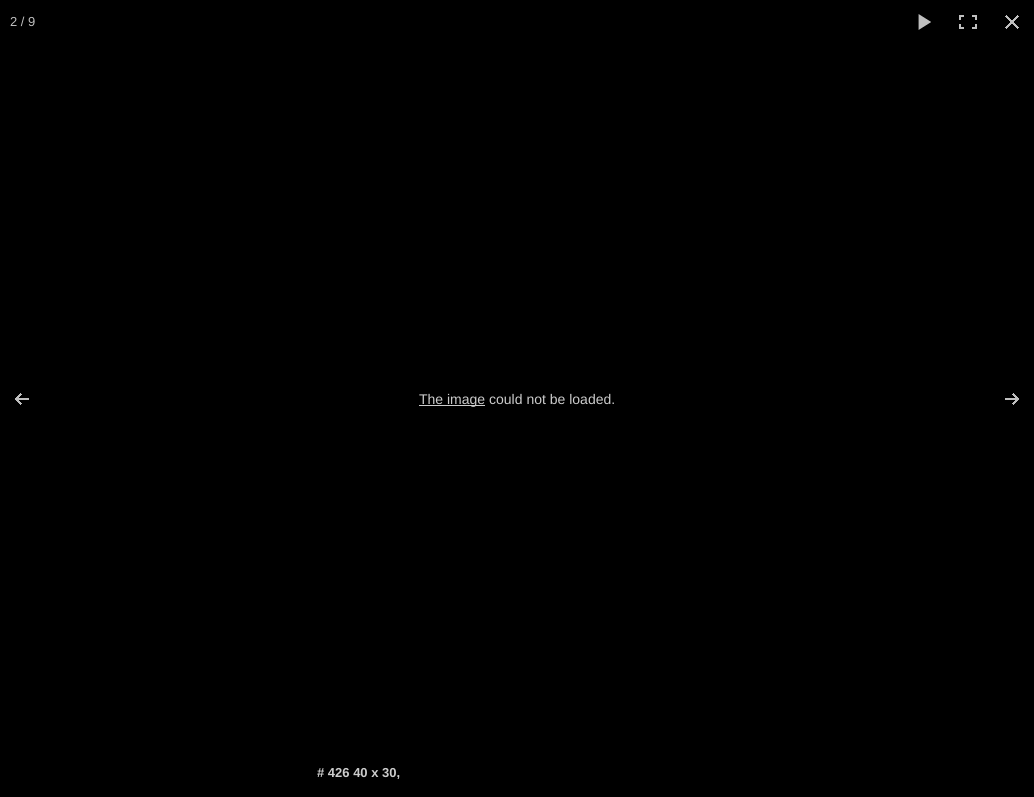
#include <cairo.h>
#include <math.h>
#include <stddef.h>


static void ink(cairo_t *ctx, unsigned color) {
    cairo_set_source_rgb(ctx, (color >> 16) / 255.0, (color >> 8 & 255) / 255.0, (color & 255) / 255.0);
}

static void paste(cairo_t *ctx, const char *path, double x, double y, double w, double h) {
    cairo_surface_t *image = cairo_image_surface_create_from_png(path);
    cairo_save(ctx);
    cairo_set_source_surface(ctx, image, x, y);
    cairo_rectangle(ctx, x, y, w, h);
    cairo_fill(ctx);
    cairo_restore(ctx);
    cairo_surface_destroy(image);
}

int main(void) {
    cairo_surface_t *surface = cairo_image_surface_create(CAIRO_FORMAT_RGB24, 1034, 797);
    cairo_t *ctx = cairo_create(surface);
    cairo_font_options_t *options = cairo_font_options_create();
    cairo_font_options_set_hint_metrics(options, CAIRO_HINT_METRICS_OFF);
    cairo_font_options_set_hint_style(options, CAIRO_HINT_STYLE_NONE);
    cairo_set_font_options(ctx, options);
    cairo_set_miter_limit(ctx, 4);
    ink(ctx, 0x000000);
    cairo_paint(ctx);
    cairo_select_font_face(ctx, "Liberation Sans", CAIRO_FONT_SLANT_NORMAL, CAIRO_FONT_WEIGHT_NORMAL);
    cairo_set_font_size(ctx, 13);
    ink(ctx, 0xBFBFBF);
    cairo_move_to(ctx, 10, 26);
    cairo_show_text(ctx, "2 / 9");
    paste(ctx, "media/1.png", 918, 14, 13, 16);
    paste(ctx, "media/2.png", 959, 15, 18, 14);
    paste(ctx, "media/3.png", 1005, 15, 14, 14);
    paste(ctx, "media/4.png", 15, 393, 14, 12);
    paste(ctx, "media/5.png", 1005, 393, 14, 12);
    cairo_select_font_face(ctx, "Liberation Sans", CAIRO_FONT_SLANT_NORMAL, CAIRO_FONT_WEIGHT_BOLD);
    ink(ctx, 0xCCCCCC);
    cairo_move_to(ctx, 317, 777);
    cairo_show_text(ctx, "# 426 40 x 30,");
    cairo_rectangle(ctx, 419, 405, 66, 1);
    cairo_fill(ctx);
    cairo_select_font_face(ctx, "Liberation Sans", CAIRO_FONT_SLANT_NORMAL, CAIRO_FONT_WEIGHT_NORMAL);
    cairo_set_font_size(ctx, 14);
    cairo_move_to(ctx, 419, 404);
    cairo_show_text(ctx, "The image could not be loaded.");
    cairo_surface_write_to_png(surface, "image.png");
    cairo_font_options_destroy(options);
    cairo_destroy(ctx);
    cairo_surface_destroy(surface);
    return 0;
}
